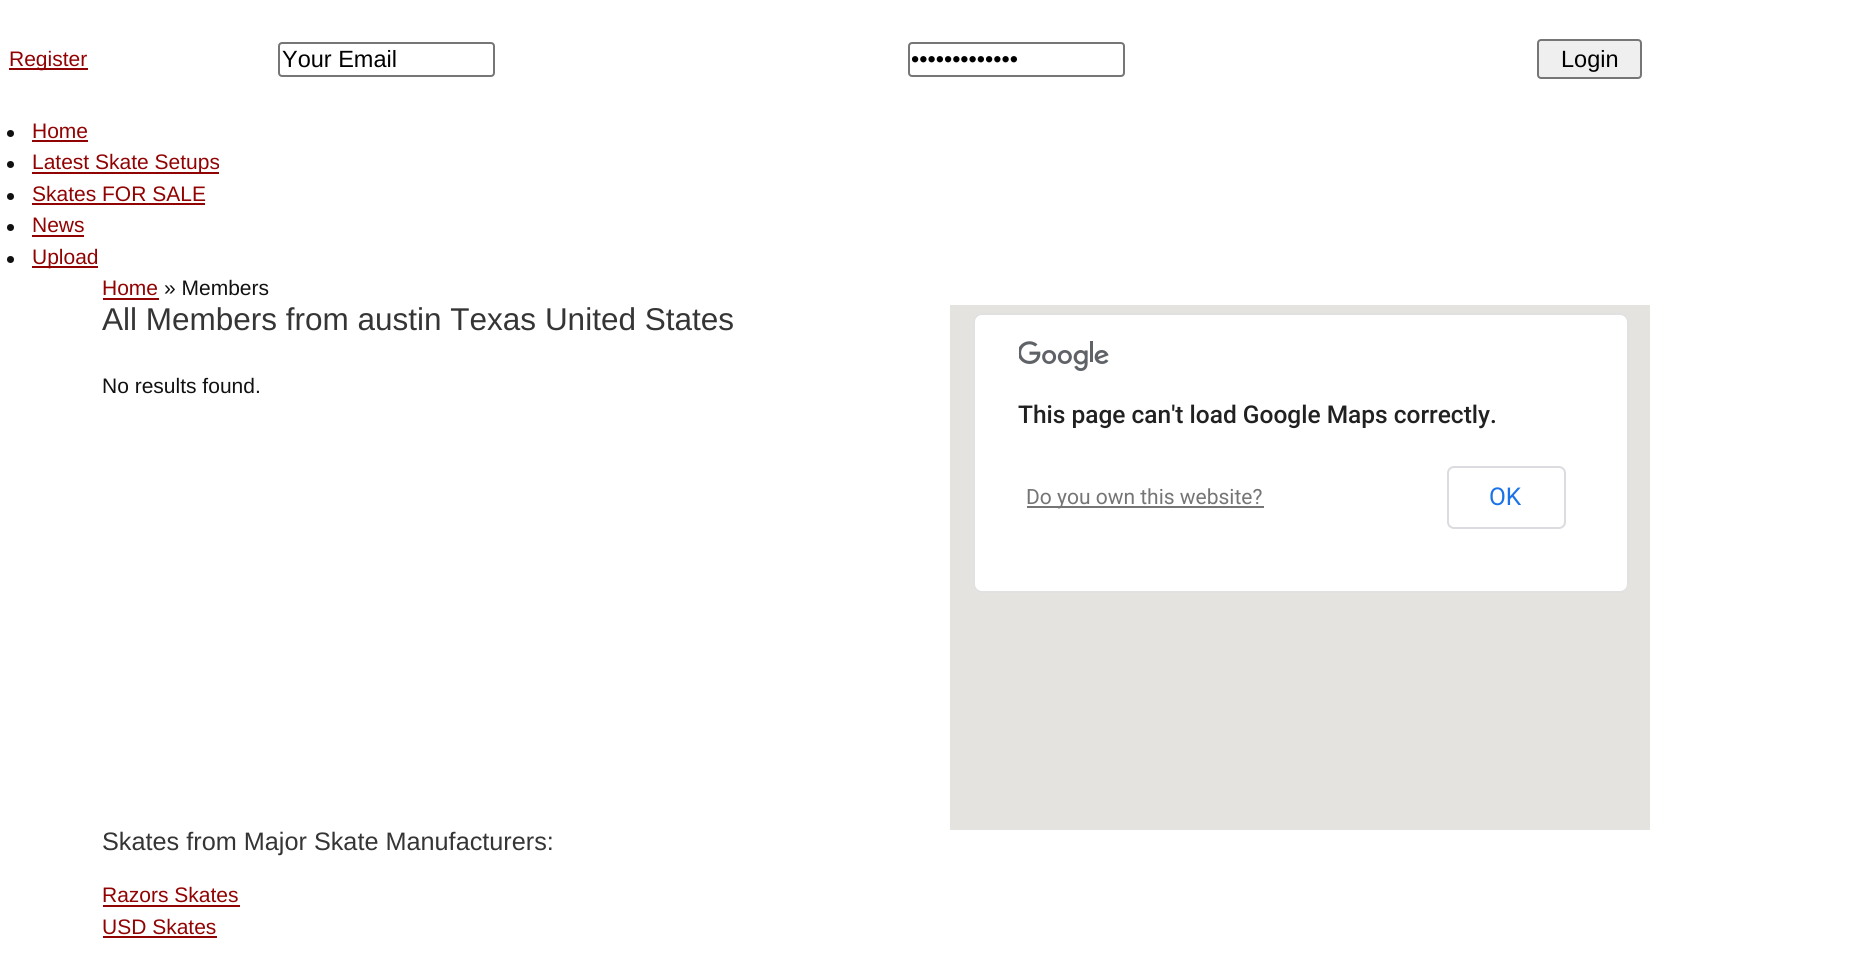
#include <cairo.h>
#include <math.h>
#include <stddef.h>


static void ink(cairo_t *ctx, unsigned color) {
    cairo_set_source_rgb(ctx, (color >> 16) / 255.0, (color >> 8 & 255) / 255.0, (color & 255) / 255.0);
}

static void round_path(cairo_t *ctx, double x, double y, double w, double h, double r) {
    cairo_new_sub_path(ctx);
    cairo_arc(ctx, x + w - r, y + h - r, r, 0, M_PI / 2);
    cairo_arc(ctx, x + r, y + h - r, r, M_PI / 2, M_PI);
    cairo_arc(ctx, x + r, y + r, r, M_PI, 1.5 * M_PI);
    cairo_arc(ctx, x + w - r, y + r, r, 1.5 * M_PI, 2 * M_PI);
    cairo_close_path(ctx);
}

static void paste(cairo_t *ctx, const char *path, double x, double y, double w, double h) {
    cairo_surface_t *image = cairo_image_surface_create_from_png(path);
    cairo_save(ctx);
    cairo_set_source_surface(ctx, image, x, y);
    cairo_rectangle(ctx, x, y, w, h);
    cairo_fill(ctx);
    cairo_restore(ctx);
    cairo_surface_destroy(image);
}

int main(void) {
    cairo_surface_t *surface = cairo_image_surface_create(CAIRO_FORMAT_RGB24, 1866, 960);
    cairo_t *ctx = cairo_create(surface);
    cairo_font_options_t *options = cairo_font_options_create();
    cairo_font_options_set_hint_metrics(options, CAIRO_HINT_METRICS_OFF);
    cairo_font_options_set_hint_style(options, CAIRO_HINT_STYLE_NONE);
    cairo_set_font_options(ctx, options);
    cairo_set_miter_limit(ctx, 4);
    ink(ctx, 0xFFFFFF);
    cairo_paint(ctx);
    ink(ctx, 0x910303);
    cairo_rectangle(ctx, 9, 68, 79, 2);
    cairo_fill(ctx);
    cairo_select_font_face(ctx, "Liberation Sans", CAIRO_FONT_SLANT_NORMAL, CAIRO_FONT_WEIGHT_NORMAL);
    cairo_set_font_size(ctx, 21);
    cairo_move_to(ctx, 9, 66);
    cairo_show_text(ctx, "Register");
    round_path(ctx, 279, 43, 215, 33, 3);
    ink(ctx, 0x767676);
    cairo_stroke(ctx);
    cairo_set_font_size(ctx, 23.5);
    ink(ctx, 0x000000);
    cairo_move_to(ctx, 282, 67);
    cairo_show_text(ctx, "Your Email");
    round_path(ctx, 909, 43, 215, 33, 3);
    ink(ctx, 0x767676);
    cairo_stroke(ctx);
    ink(ctx, 0x000000);
    cairo_move_to(ctx, 911, 67);
    cairo_show_text(ctx, "•••••••••••••");
    ink(ctx, 0xEFEFEF);
    round_path(ctx, 1538, 40, 103, 38, 3);
    cairo_fill_preserve(ctx);
    ink(ctx, 0x767676);
    cairo_stroke(ctx);
    ink(ctx, 0x000000);
    cairo_move_to(ctx, 1561, 67);
    cairo_show_text(ctx, "Login");
    ink(ctx, 0x111111);
    cairo_new_path(ctx);
    cairo_arc(ctx, 10.5, 133.5, 3.5, 0, 2 * M_PI);
    cairo_fill(ctx);
    cairo_set_font_size(ctx, 21);
    ink(ctx, 0x910303);
    cairo_move_to(ctx, 32, 138);
    cairo_show_text(ctx, "Home");
    cairo_rectangle(ctx, 32, 140, 56, 2);
    cairo_fill(ctx);
    ink(ctx, 0x111111);
    cairo_arc(ctx, 10.5, 164.5, 3.5, 0, 2 * M_PI);
    cairo_fill(ctx);
    ink(ctx, 0x910303);
    cairo_rectangle(ctx, 32, 172, 187, 2);
    cairo_fill(ctx);
    cairo_move_to(ctx, 32, 169);
    cairo_show_text(ctx, "Latest Skate Setups");
    ink(ctx, 0x111111);
    cairo_new_path(ctx);
    cairo_arc(ctx, 10.5, 196.5, 3.5, 0, 2 * M_PI);
    cairo_fill(ctx);
    ink(ctx, 0x910303);
    cairo_move_to(ctx, 32, 201);
    cairo_show_text(ctx, "Skates FOR SALE");
    cairo_rectangle(ctx, 32, 203, 173, 2);
    cairo_fill(ctx);
    ink(ctx, 0x111111);
    cairo_arc(ctx, 10.5, 227.5, 3.5, 0, 2 * M_PI);
    cairo_fill(ctx);
    ink(ctx, 0x910303);
    cairo_move_to(ctx, 32, 232);
    cairo_show_text(ctx, "News");
    cairo_rectangle(ctx, 32, 235, 52, 2);
    cairo_fill(ctx);
    ink(ctx, 0x111111);
    cairo_arc(ctx, 10.5, 259.5, 3.5, 0, 2 * M_PI);
    cairo_fill(ctx);
    ink(ctx, 0x910303);
    cairo_rectangle(ctx, 32, 266, 66, 2);
    cairo_fill(ctx);
    cairo_move_to(ctx, 32, 264);
    cairo_show_text(ctx, "Upload");
    cairo_move_to(ctx, 102, 295);
    cairo_show_text(ctx, "Home");
    cairo_rectangle(ctx, 103, 298, 56, 2);
    cairo_fill(ctx);
    ink(ctx, 0x111111);
    cairo_move_to(ctx, 164, 295);
    cairo_show_text(ctx, "» Members");
    cairo_set_font_size(ctx, 31.5);
    ink(ctx, 0x353535);
    cairo_move_to(ctx, 102, 330);
    cairo_show_text(ctx, "All Members from austin Texas United States");
    cairo_set_font_size(ctx, 21);
    ink(ctx, 0x111111);
    cairo_move_to(ctx, 102, 393);
    cairo_show_text(ctx, "No results found.");
    ink(ctx, 0xE5E3DF);
    cairo_rectangle(ctx, 950, 305, 700, 525);
    cairo_fill(ctx);
    ink(ctx, 0xFFFFFF);
    round_path(ctx, 973, 313, 656, 280, 9);
    cairo_fill(ctx);
    round_path(ctx, 974, 314, 654, 278, 8);
    cairo_set_source_rgba(ctx, 0, 0, 0, 0.12);
    cairo_stroke(ctx);
    paste(ctx, "media/1.png", 1019, 341, 90, 30);
    cairo_select_font_face(ctx, "Roboto Medium", CAIRO_FONT_SLANT_NORMAL, CAIRO_FONT_WEIGHT_NORMAL);
    cairo_set_font_size(ctx, 24.5);
    ink(ctx, 0x212121);
    cairo_move_to(ctx, 1018, 423);
    cairo_show_text(ctx, "This page can't load Google Maps correctly.");
    ink(ctx, 0x757575);
    cairo_rectangle(ctx, 1027, 506, 237, 2);
    cairo_fill(ctx);
    cairo_select_font_face(ctx, "Roboto", CAIRO_FONT_SLANT_NORMAL, CAIRO_FONT_WEIGHT_NORMAL);
    cairo_set_font_size(ctx, 21);
    cairo_move_to(ctx, 1026, 504);
    cairo_show_text(ctx, "Do you own this website?");
    round_path(ctx, 1448, 467, 117, 61, 6);
    ink(ctx, 0xDADCE0);
    cairo_stroke(ctx);
    cairo_set_font_size(ctx, 24.5);
    ink(ctx, 0x1A73E8);
    cairo_move_to(ctx, 1489, 505);
    cairo_show_text(ctx, "OK");
    cairo_select_font_face(ctx, "Liberation Sans", CAIRO_FONT_SLANT_NORMAL, CAIRO_FONT_WEIGHT_NORMAL);
    cairo_set_font_size(ctx, 25.25);
    ink(ctx, 0x353535);
    cairo_move_to(ctx, 102, 850);
    cairo_show_text(ctx, "Skates from Major Skate Manufacturers:");
    cairo_set_font_size(ctx, 21);
    ink(ctx, 0x910303);
    cairo_move_to(ctx, 102, 902);
    cairo_show_text(ctx, "Razors Skates");
    cairo_rectangle(ctx, 103, 905, 137, 2);
    cairo_fill(ctx);
    cairo_move_to(ctx, 102, 934);
    cairo_show_text(ctx, "USD Skates");
    cairo_rectangle(ctx, 103, 936, 114, 2);
    cairo_fill(ctx);
    cairo_surface_write_to_png(surface, "image.png");
    cairo_font_options_destroy(options);
    cairo_destroy(ctx);
    cairo_surface_destroy(surface);
    return 0;
}
